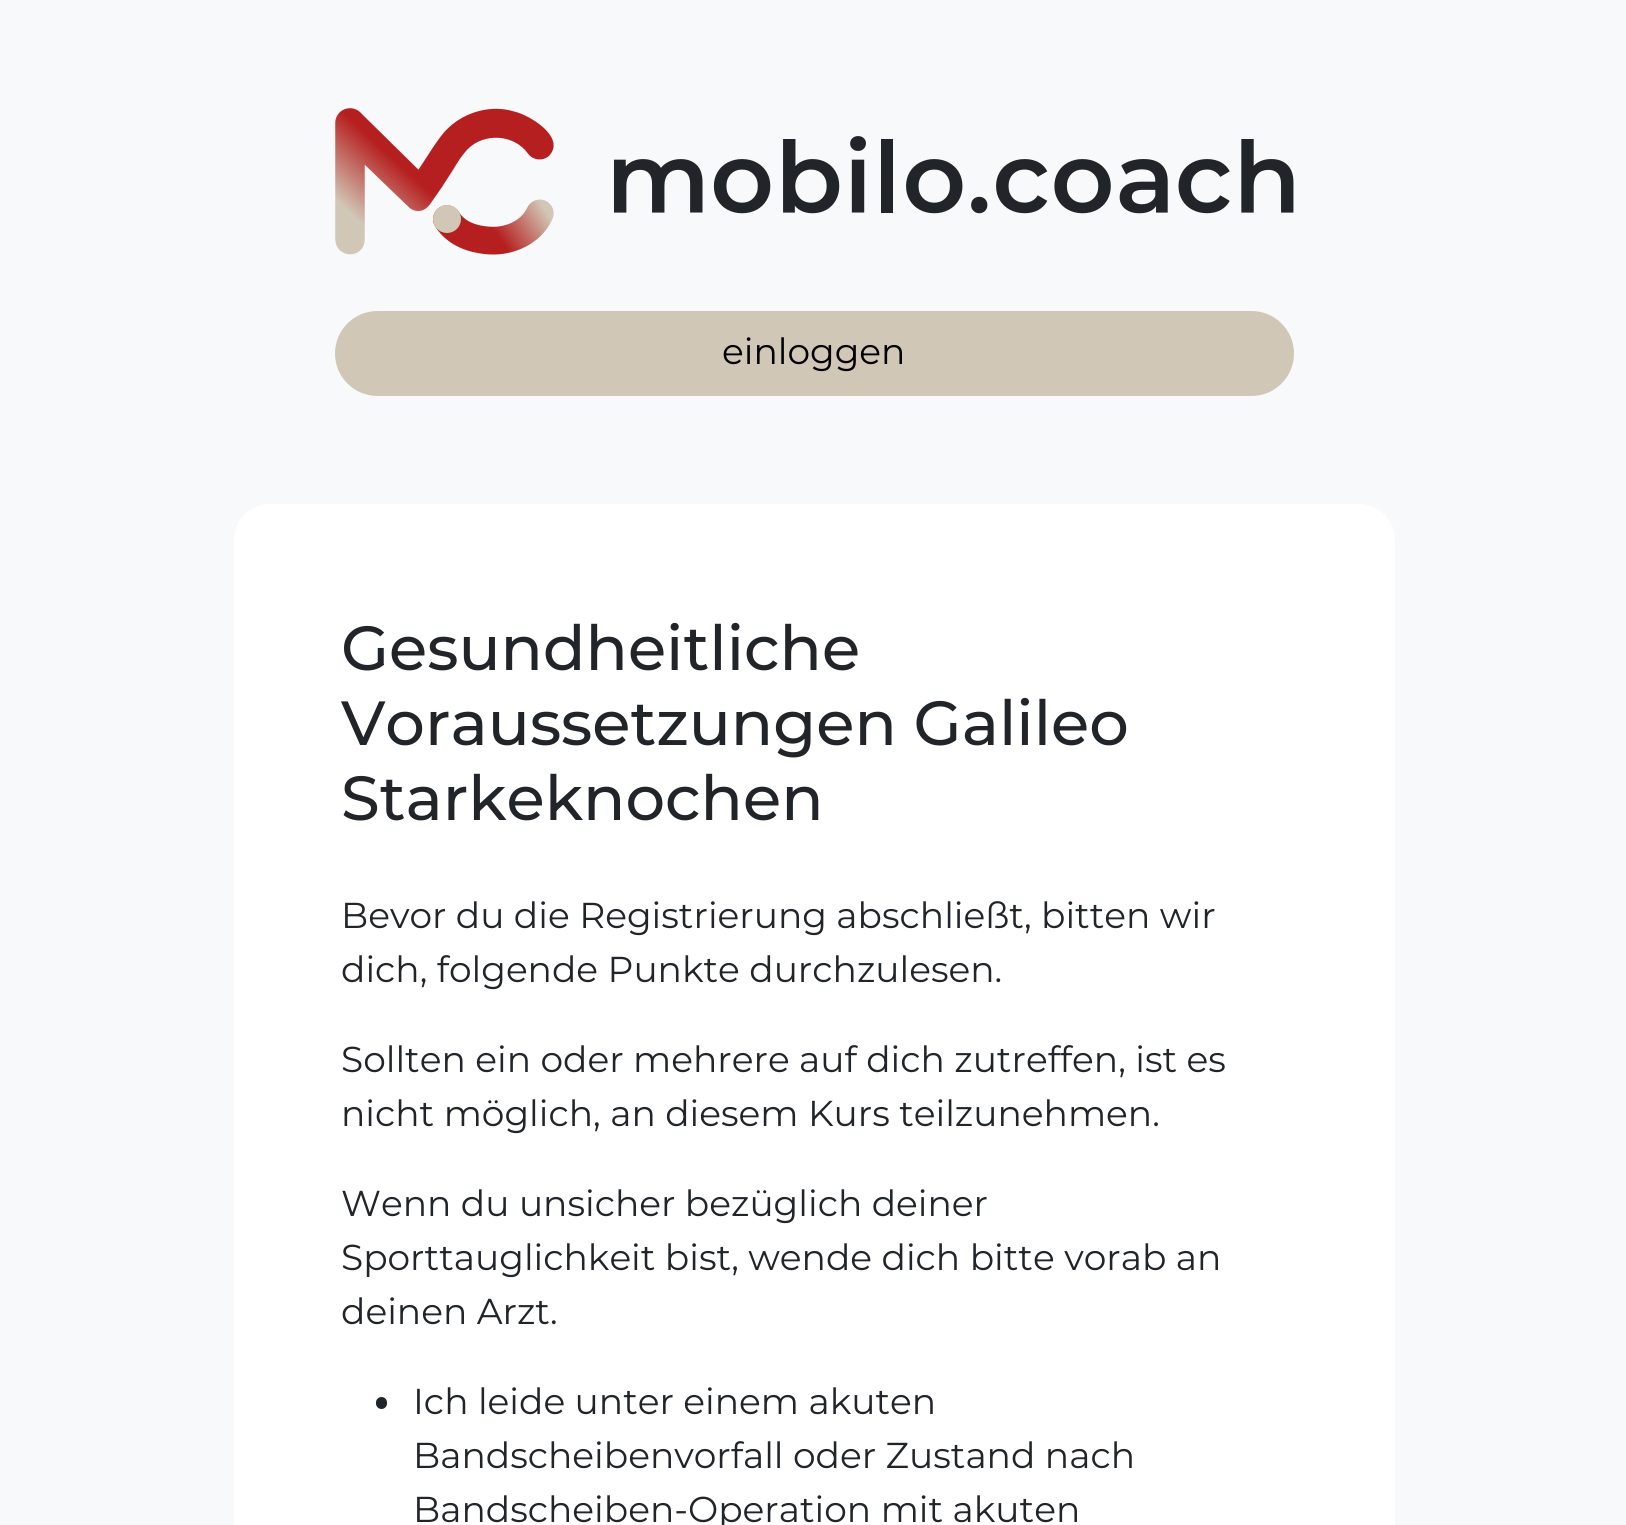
#include <cairo.h>
#include <math.h>
#include <stddef.h>

typedef struct { double x, y; const char *s; } line_t;

static void ink(cairo_t *ctx, unsigned color) {
    cairo_set_source_rgb(ctx, (color >> 16) / 255.0, (color >> 8 & 255) / 255.0, (color & 255) / 255.0);
}

static void round_path(cairo_t *ctx, double x, double y, double w, double h, double r) {
    cairo_new_sub_path(ctx);
    cairo_arc(ctx, x + w - r, y + h - r, r, 0, M_PI / 2);
    cairo_arc(ctx, x + r, y + h - r, r, M_PI / 2, M_PI);
    cairo_arc(ctx, x + r, y + r, r, M_PI, 1.5 * M_PI);
    cairo_arc(ctx, x + w - r, y + r, r, 1.5 * M_PI, 2 * M_PI);
    cairo_close_path(ctx);
}

static void paste(cairo_t *ctx, const char *path, double x, double y, double w, double h) {
    cairo_surface_t *image = cairo_image_surface_create_from_png(path);
    cairo_save(ctx);
    cairo_set_source_surface(ctx, image, x, y);
    cairo_rectangle(ctx, x, y, w, h);
    cairo_fill(ctx);
    cairo_restore(ctx);
    cairo_surface_destroy(image);
}

int main(void) {
    cairo_surface_t *surface = cairo_image_surface_create(CAIRO_FORMAT_RGB24, 1626, 1525);
    cairo_t *ctx = cairo_create(surface);
    cairo_font_options_t *options = cairo_font_options_create();
    cairo_font_options_set_hint_metrics(options, CAIRO_HINT_METRICS_OFF);
    cairo_font_options_set_hint_style(options, CAIRO_HINT_STYLE_NONE);
    cairo_set_font_options(ctx, options);
    cairo_set_miter_limit(ctx, 4);
    ink(ctx, 0xF8F9FA);
    cairo_paint(ctx);
    paste(ctx, "media/1.png", 335, 108, 959, 147);
    ink(ctx, 0xD1C7B6);
    round_path(ctx, 336, 312, 957, 83, 41.5);
    cairo_fill_preserve(ctx);
    cairo_stroke(ctx);
    cairo_select_font_face(ctx, "Montserrat Thin", CAIRO_FONT_SLANT_NORMAL, CAIRO_FONT_WEIGHT_NORMAL);
    cairo_set_font_size(ctx, 36);
    ink(ctx, 0x000000);
    cairo_move_to(ctx, 722, 364);
    cairo_show_text(ctx, "einloggen");
    ink(ctx, 0xFFFFFF);
    round_path(ctx, 234, 504, 1161, 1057, 36);
    cairo_fill(ctx);
    cairo_select_font_face(ctx, "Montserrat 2 Thin", CAIRO_FONT_SLANT_NORMAL, CAIRO_FONT_WEIGHT_NORMAL);
    cairo_set_font_size(ctx, 62.3);
    ink(ctx, 0x212529);
    {
        static const line_t items[] = {
            {341, 670, "Gesundheitliche"},
            {341, 745, "Voraussetzungen Galileo"},
            {341, 820, "Starkeknochen"},
        };
        for (size_t i = 0; i < sizeof items / sizeof *items; i++) {
            cairo_move_to(ctx, items[i].x, items[i].y);
            cairo_show_text(ctx, items[i].s);
        }
    }
    cairo_select_font_face(ctx, "Montserrat Thin", CAIRO_FONT_SLANT_NORMAL, CAIRO_FONT_WEIGHT_NORMAL);
    cairo_set_font_size(ctx, 36);
    {
        static const line_t items[] = {
            {341, 928, "Bevor du die Registrierung abschließt, bitten wir"},
            {341, 982, "dich, folgende Punkte durchzulesen."},
            {341, 1072, "Sollten ein oder mehrere auf dich zutreffen, ist es"},
            {341, 1126, "nicht möglich, an diesem Kurs teilzunehmen."},
            {341, 1216, "Wenn du unsicher bezüglich deiner"},
            {341, 1270, "Sporttauglichkeit bist, wende dich bitte vorab an"},
            {341, 1324, "deinen Arzt."},
        };
        for (size_t i = 0; i < sizeof items / sizeof *items; i++) {
            cairo_move_to(ctx, items[i].x, items[i].y);
            cairo_show_text(ctx, items[i].s);
        }
    }
    round_path(ctx, 376, 1397, 11, 12, 5.5);
    cairo_fill(ctx);
    {
        static const line_t items[] = {
            {413, 1414, "Ich leide unter einem akuten"},
            {413, 1468, "Bandscheibenvorfall oder Zustand nach"},
            {413, 1522, "Bandscheiben-Operation mit akuten"},
        };
        for (size_t i = 0; i < sizeof items / sizeof *items; i++) {
            cairo_move_to(ctx, items[i].x, items[i].y);
            cairo_show_text(ctx, items[i].s);
        }
    }
    cairo_surface_write_to_png(surface, "image.png");
    cairo_font_options_destroy(options);
    cairo_destroy(ctx);
    cairo_surface_destroy(surface);
    return 0;
}
